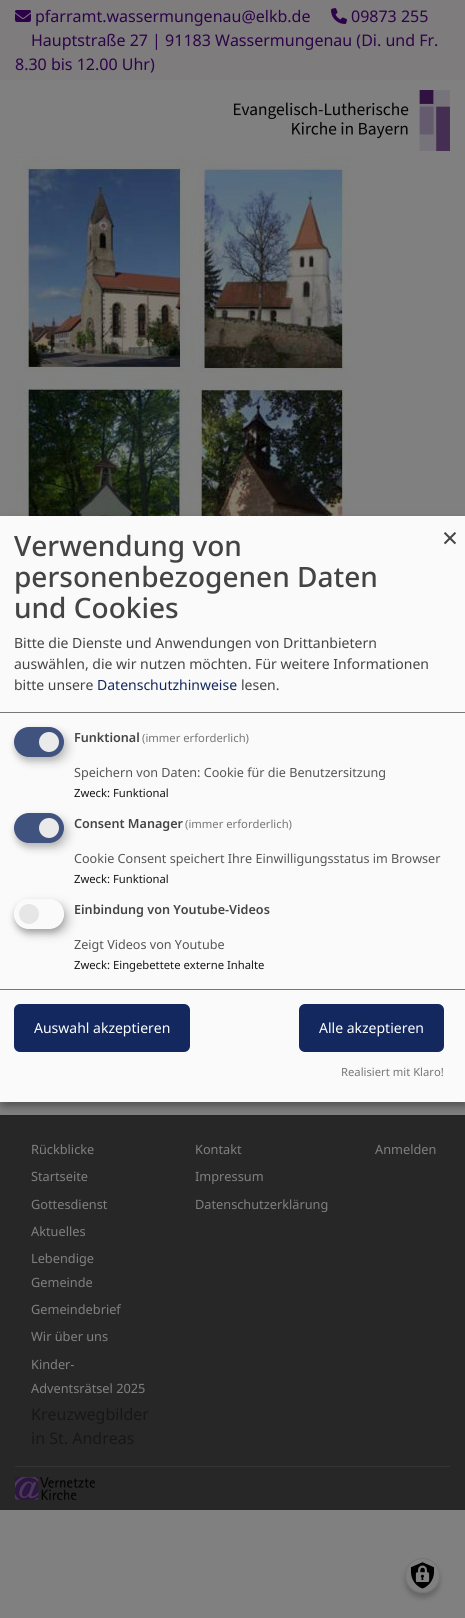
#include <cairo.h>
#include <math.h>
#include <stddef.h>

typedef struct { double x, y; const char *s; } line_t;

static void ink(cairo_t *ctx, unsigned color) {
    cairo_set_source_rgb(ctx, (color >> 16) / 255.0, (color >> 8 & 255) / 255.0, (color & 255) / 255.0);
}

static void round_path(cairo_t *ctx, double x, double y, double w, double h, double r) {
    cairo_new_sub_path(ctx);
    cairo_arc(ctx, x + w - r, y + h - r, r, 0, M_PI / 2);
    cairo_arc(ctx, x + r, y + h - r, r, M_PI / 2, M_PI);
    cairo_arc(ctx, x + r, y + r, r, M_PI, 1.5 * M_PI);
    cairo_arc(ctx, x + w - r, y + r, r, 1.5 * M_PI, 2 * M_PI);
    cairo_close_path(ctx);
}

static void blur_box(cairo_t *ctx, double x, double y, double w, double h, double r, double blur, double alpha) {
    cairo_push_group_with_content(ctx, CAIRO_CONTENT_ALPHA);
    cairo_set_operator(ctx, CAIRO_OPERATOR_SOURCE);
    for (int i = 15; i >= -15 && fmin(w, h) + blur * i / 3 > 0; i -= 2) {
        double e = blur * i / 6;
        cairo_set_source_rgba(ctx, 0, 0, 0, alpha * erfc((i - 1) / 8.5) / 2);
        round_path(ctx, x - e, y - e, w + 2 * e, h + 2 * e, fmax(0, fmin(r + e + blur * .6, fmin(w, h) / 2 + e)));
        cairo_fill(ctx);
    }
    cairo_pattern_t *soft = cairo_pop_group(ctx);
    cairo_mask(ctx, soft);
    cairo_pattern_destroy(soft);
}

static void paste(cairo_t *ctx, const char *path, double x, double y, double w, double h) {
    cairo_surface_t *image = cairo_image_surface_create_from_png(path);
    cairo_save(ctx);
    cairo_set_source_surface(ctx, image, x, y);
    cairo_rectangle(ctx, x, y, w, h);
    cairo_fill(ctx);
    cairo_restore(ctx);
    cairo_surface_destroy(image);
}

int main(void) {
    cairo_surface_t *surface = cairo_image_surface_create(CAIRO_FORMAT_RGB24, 465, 1618);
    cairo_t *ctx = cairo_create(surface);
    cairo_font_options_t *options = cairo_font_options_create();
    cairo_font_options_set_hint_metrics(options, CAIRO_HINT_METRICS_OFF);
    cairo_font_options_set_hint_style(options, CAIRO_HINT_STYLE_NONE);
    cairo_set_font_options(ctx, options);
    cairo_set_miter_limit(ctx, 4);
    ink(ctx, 0x808080);
    cairo_paint(ctx);
    ink(ctx, 0x7E7C7C);
    cairo_rectangle(ctx, 0, 0, 465, 80);
    cairo_fill(ctx);
    paste(ctx, "media/1.png", 15, 10, 16, 12);
    cairo_select_font_face(ctx, "Noto Sans", CAIRO_FONT_SLANT_NORMAL, CAIRO_FONT_WEIGHT_NORMAL);
    cairo_set_font_size(ctx, 16);
    ink(ctx, 0x2D0349);
    cairo_move_to(ctx, 35, 22);
    cairo_show_text(ctx, "pfarramt.wassermungenau@elkb.de");
    paste(ctx, "media/2.png", 331, 8, 16, 16);
    {
        static const line_t items[] = {
            {351, 22, "09873 255"},
            {31, 46, "Hauptstraße 27 | 91183 Wassermungenau (Di. und Fr."},
            {15, 70, "8.30 bis 12.00 Uhr)"},
        };
        for (size_t i = 0; i < sizeof items / sizeof *items; i++) {
            cairo_move_to(ctx, items[i].x, items[i].y);
            cairo_show_text(ctx, items[i].s);
        }
    }
    paste(ctx, "media/3.png", 234, 90, 216, 61);
    paste(ctx, "media/4.png", 15, 156, 336, 360);
    ink(ctx, 0x272727);
    cairo_rectangle(ctx, 0, 1117, 465, 393);
    cairo_fill(ctx);
    ink(ctx, 0x232526);
    cairo_rectangle(ctx, 0, 1115, 465, 2);
    cairo_fill(ctx);
    cairo_set_font_size(ctx, 12.75);
    ink(ctx, 0x808080);
    {
        static const line_t items[] = {
            {31, 1154, "Rückblicke"},
            {31, 1181, "Startseite"},
            {31, 1209, "Gottesdienst"},
            {31, 1236, "Aktuelles"},
            {31, 1263, "Lebendige"},
            {31, 1287, "Gemeinde"},
            {31, 1314, "Gemeindebrief"},
            {31, 1341, "Wir über uns"},
            {31, 1369, "Kinder-"},
            {31, 1393, "Adventsrätsel 2025"},
        };
        for (size_t i = 0; i < sizeof items / sizeof *items; i++) {
            cairo_move_to(ctx, items[i].x, items[i].y);
            cairo_show_text(ctx, items[i].s);
        }
    }
    cairo_set_font_size(ctx, 16);
    ink(ctx, 0x151616);
    cairo_move_to(ctx, 31, 1420);
    cairo_show_text(ctx, "Kreuzwegbilder");
    cairo_move_to(ctx, 31, 1444);
    cairo_show_text(ctx, "in St. Andreas");
    cairo_set_font_size(ctx, 12.75);
    ink(ctx, 0x808080);
    {
        static const line_t items[] = {
            {195, 1154, "Kontakt"},
            {195, 1181, "Impressum"},
            {195, 1209, "Datenschutzerklärung"},
            {375, 1154, "Anmelden"},
        };
        for (size_t i = 0; i < sizeof items / sizeof *items; i++) {
            cairo_move_to(ctx, items[i].x, items[i].y);
            cairo_show_text(ctx, items[i].s);
        }
    }
    ink(ctx, 0x323639);
    cairo_rectangle(ctx, 15, 1466, 435, 1);
    cairo_fill(ctx);
    paste(ctx, "media/5.png", 15, 1477, 80, 23);
    ink(ctx, 0x000000);
    blur_box(ctx, 5, 521, 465, 586, 0, 5, 0.19);
    blur_box(ctx, 0, 520, 465, 586, 0, 3, 0.2);
    ink(ctx, 0xFAFAFA);
    cairo_rectangle(ctx, 0, 516, 465, 586);
    cairo_fill(ctx);
    ink(ctx, 0x777777);
    cairo_rectangle(ctx, 0, 712, 465, 1);
    cairo_fill(ctx);
    cairo_select_font_face(ctx, "Noto Sans Medium", CAIRO_FONT_SLANT_NORMAL, CAIRO_FONT_WEIGHT_NORMAL);
    cairo_set_font_size(ctx, 28);
    ink(ctx, 0x444444);
    {
        static const line_t items[] = {
            {14, 556, "Verwendung von"},
            {14, 587, "personenbezogenen Daten"},
            {14, 618, "und Cookies"},
        };
        for (size_t i = 0; i < sizeof items / sizeof *items; i++) {
            cairo_move_to(ctx, items[i].x, items[i].y);
            cairo_show_text(ctx, items[i].s);
        }
    }
    cairo_select_font_face(ctx, "Noto Sans", CAIRO_FONT_SLANT_NORMAL, CAIRO_FONT_WEIGHT_NORMAL);
    cairo_set_font_size(ctx, 14);
    {
        static const line_t items[] = {
            {14, 648, "Bitte die Dienste und Anwendungen von Drittanbietern"},
            {14, 669, "auswählen, die wir nutzen möchten. Für weitere Informationen"},
            {14, 690, "bitte unsere"},
        };
        for (size_t i = 0; i < sizeof items / sizeof *items; i++) {
            cairo_move_to(ctx, items[i].x, items[i].y);
            cairo_show_text(ctx, items[i].s);
        }
    }
    ink(ctx, 0x12285F);
    cairo_move_to(ctx, 97, 690);
    cairo_show_text(ctx, "Datenschutzhinweise");
    ink(ctx, 0x444444);
    cairo_move_to(ctx, 241, 690);
    cairo_show_text(ctx, "lesen.");
    cairo_set_font_size(ctx, 28);
    cairo_move_to(ctx, 442, 548);
    cairo_show_text(ctx, "×");
    ink(ctx, 0x000000);
    blur_box(ctx, 19, 732, 50, 30, 15, 5, 0.15);
    ink(ctx, 0x323232);
    blur_box(ctx, 14, 731, 50, 30, 15, 3, 0.2);
    ink(ctx, 0x40527E);
    round_path(ctx, 14, 727, 50, 30, 15);
    cairo_fill(ctx);
    ink(ctx, 0xEAEAEA);
    cairo_arc(ctx, 49, 742, 10, 0, 2 * M_PI);
    cairo_fill(ctx);
    cairo_select_font_face(ctx, "Noto Sans SemiBold", CAIRO_FONT_SLANT_NORMAL, CAIRO_FONT_WEIGHT_NORMAL);
    cairo_set_font_size(ctx, 12.6);
    ink(ctx, 0x444444);
    cairo_move_to(ctx, 74, 742);
    cairo_show_text(ctx, "Funktional");
    cairo_select_font_face(ctx, "Noto Sans", CAIRO_FONT_SLANT_NORMAL, CAIRO_FONT_WEIGHT_NORMAL);
    cairo_set_font_size(ctx, 11.25);
    ink(ctx, 0x777777);
    cairo_move_to(ctx, 142, 742);
    cairo_show_text(ctx, "(immer erforderlich)");
    cairo_set_font_size(ctx, 12.6);
    ink(ctx, 0x555555);
    cairo_move_to(ctx, 74, 777);
    cairo_show_text(ctx, "Speichern von Daten: Cookie für die Benutzersitzung");
    cairo_set_font_size(ctx, 11.25);
    ink(ctx, 0x151616);
    cairo_move_to(ctx, 74, 797);
    cairo_show_text(ctx, "Zweck: Funktional");
    ink(ctx, 0x000000);
    blur_box(ctx, 19, 818, 50, 30, 15, 5, 0.15);
    ink(ctx, 0x323232);
    blur_box(ctx, 14, 817, 50, 30, 15, 3, 0.2);
    ink(ctx, 0x40527E);
    round_path(ctx, 14, 813, 50, 30, 15);
    cairo_fill(ctx);
    ink(ctx, 0xEAEAEA);
    cairo_arc(ctx, 49, 828, 10, 0, 2 * M_PI);
    cairo_fill(ctx);
    cairo_select_font_face(ctx, "Noto Sans SemiBold", CAIRO_FONT_SLANT_NORMAL, CAIRO_FONT_WEIGHT_NORMAL);
    cairo_set_font_size(ctx, 12.6);
    ink(ctx, 0x444444);
    cairo_move_to(ctx, 74, 828);
    cairo_show_text(ctx, "Consent Manager");
    cairo_select_font_face(ctx, "Noto Sans", CAIRO_FONT_SLANT_NORMAL, CAIRO_FONT_WEIGHT_NORMAL);
    cairo_set_font_size(ctx, 11.25);
    ink(ctx, 0x777777);
    cairo_move_to(ctx, 185, 828);
    cairo_show_text(ctx, "(immer erforderlich)");
    cairo_set_font_size(ctx, 12.6);
    ink(ctx, 0x555555);
    cairo_move_to(ctx, 74, 863);
    cairo_show_text(ctx, "Cookie Consent speichert Ihre Einwilligungsstatus im Browser");
    cairo_set_font_size(ctx, 11.25);
    ink(ctx, 0x151616);
    cairo_move_to(ctx, 74, 883);
    cairo_show_text(ctx, "Zweck: Funktional");
    cairo_save(ctx);
    cairo_set_fill_rule(ctx, CAIRO_FILL_RULE_EVEN_ODD);
    cairo_new_path(ctx);
    cairo_move_to(ctx, 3, 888);
    cairo_line_to(ctx, 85, 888);
    cairo_line_to(ctx, 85, 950);
    cairo_line_to(ctx, 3, 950);
    cairo_close_path(ctx);
    cairo_move_to(ctx, 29, 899);
    cairo_line_to(ctx, 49, 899);
    cairo_curve_to(ctx, 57.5, 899, 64, 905.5, 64, 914);
    cairo_curve_to(ctx, 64, 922.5, 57.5, 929, 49, 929);
    cairo_line_to(ctx, 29, 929);
    cairo_curve_to(ctx, 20.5, 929, 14, 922.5, 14, 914);
    cairo_curve_to(ctx, 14, 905.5, 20.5, 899, 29, 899);
    cairo_close_path(ctx);
    cairo_clip(ctx);
    ink(ctx, 0x000000);
    blur_box(ctx, 19, 904, 50, 30, 15, 5, 0.19);
    cairo_restore(ctx);
    cairo_save(ctx);
    cairo_set_fill_rule(ctx, CAIRO_FILL_RULE_EVEN_ODD);
    cairo_new_path(ctx);
    cairo_move_to(ctx, 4, 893);
    cairo_line_to(ctx, 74, 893);
    cairo_line_to(ctx, 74, 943);
    cairo_line_to(ctx, 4, 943);
    cairo_close_path(ctx);
    cairo_move_to(ctx, 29, 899);
    cairo_line_to(ctx, 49, 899);
    cairo_curve_to(ctx, 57.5, 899, 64, 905.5, 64, 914);
    cairo_curve_to(ctx, 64, 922.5, 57.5, 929, 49, 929);
    cairo_line_to(ctx, 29, 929);
    cairo_curve_to(ctx, 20.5, 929, 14, 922.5, 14, 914);
    cairo_curve_to(ctx, 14, 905.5, 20.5, 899, 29, 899);
    cairo_close_path(ctx);
    cairo_clip(ctx);
    ink(ctx, 0x000000);
    blur_box(ctx, 14, 903, 50, 30, 15, 3, 0.2);
    cairo_restore(ctx);
    ink(ctx, 0xE6E6E6);
    cairo_arc(ctx, 29, 914, 10, 0, 2 * M_PI);
    cairo_fill(ctx);
    cairo_select_font_face(ctx, "Noto Sans SemiBold", CAIRO_FONT_SLANT_NORMAL, CAIRO_FONT_WEIGHT_NORMAL);
    cairo_set_font_size(ctx, 12.6);
    ink(ctx, 0x444444);
    cairo_move_to(ctx, 74, 914);
    cairo_show_text(ctx, "Einbindung von Youtube-Videos");
    cairo_select_font_face(ctx, "Noto Sans", CAIRO_FONT_SLANT_NORMAL, CAIRO_FONT_WEIGHT_NORMAL);
    ink(ctx, 0x555555);
    cairo_move_to(ctx, 74, 949);
    cairo_show_text(ctx, "Zeigt Videos von Youtube");
    cairo_set_font_size(ctx, 11.25);
    ink(ctx, 0x151616);
    cairo_move_to(ctx, 74, 969);
    cairo_show_text(ctx, "Zweck: Eingebettete externe Inhalte");
    ink(ctx, 0x777777);
    cairo_rectangle(ctx, 0, 989, 465, 1);
    cairo_fill(ctx);
    ink(ctx, 0x12285F);
    round_path(ctx, 15.5, 1005.5, 173, 45, 4.5);
    cairo_fill_preserve(ctx);
    cairo_set_line_width(ctx, 3);
    cairo_stroke(ctx);
    cairo_set_font_size(ctx, 14);
    ink(ctx, 0xFFFFFF);
    cairo_move_to(ctx, 34, 1033);
    cairo_show_text(ctx, "Auswahl akzeptieren");
    ink(ctx, 0x12285F);
    round_path(ctx, 300.5, 1005.5, 142, 45, 4.5);
    cairo_fill_preserve(ctx);
    cairo_stroke(ctx);
    ink(ctx, 0xFFFFFF);
    cairo_move_to(ctx, 319, 1033);
    cairo_show_text(ctx, "Alle akzeptieren");
    cairo_set_font_size(ctx, 11.25);
    ink(ctx, 0x777777);
    cairo_move_to(ctx, 341, 1076);
    cairo_show_text(ctx, "Realisiert mit Klaro!");
    ink(ctx, 0x000000);
    blur_box(ctx, 405, 1563, 35, 35, 17.5, 2.5, 0.2);
    ink(ctx, 0x808080);
    cairo_arc(ctx, 422.5, 1575.5, 17.5, 0, 2 * M_PI);
    cairo_fill(ctx);
    paste(ctx, "media/6.png", 410, 1562, 25, 27);
    cairo_arc(ctx, 422.5, 1575.5, 17, 0, 2 * M_PI);
    ink(ctx, 0x757575);
    cairo_set_line_width(ctx, 1);
    cairo_stroke(ctx);
    cairo_surface_write_to_png(surface, "image.png");
    cairo_font_options_destroy(options);
    cairo_destroy(ctx);
    cairo_surface_destroy(surface);
    return 0;
}
